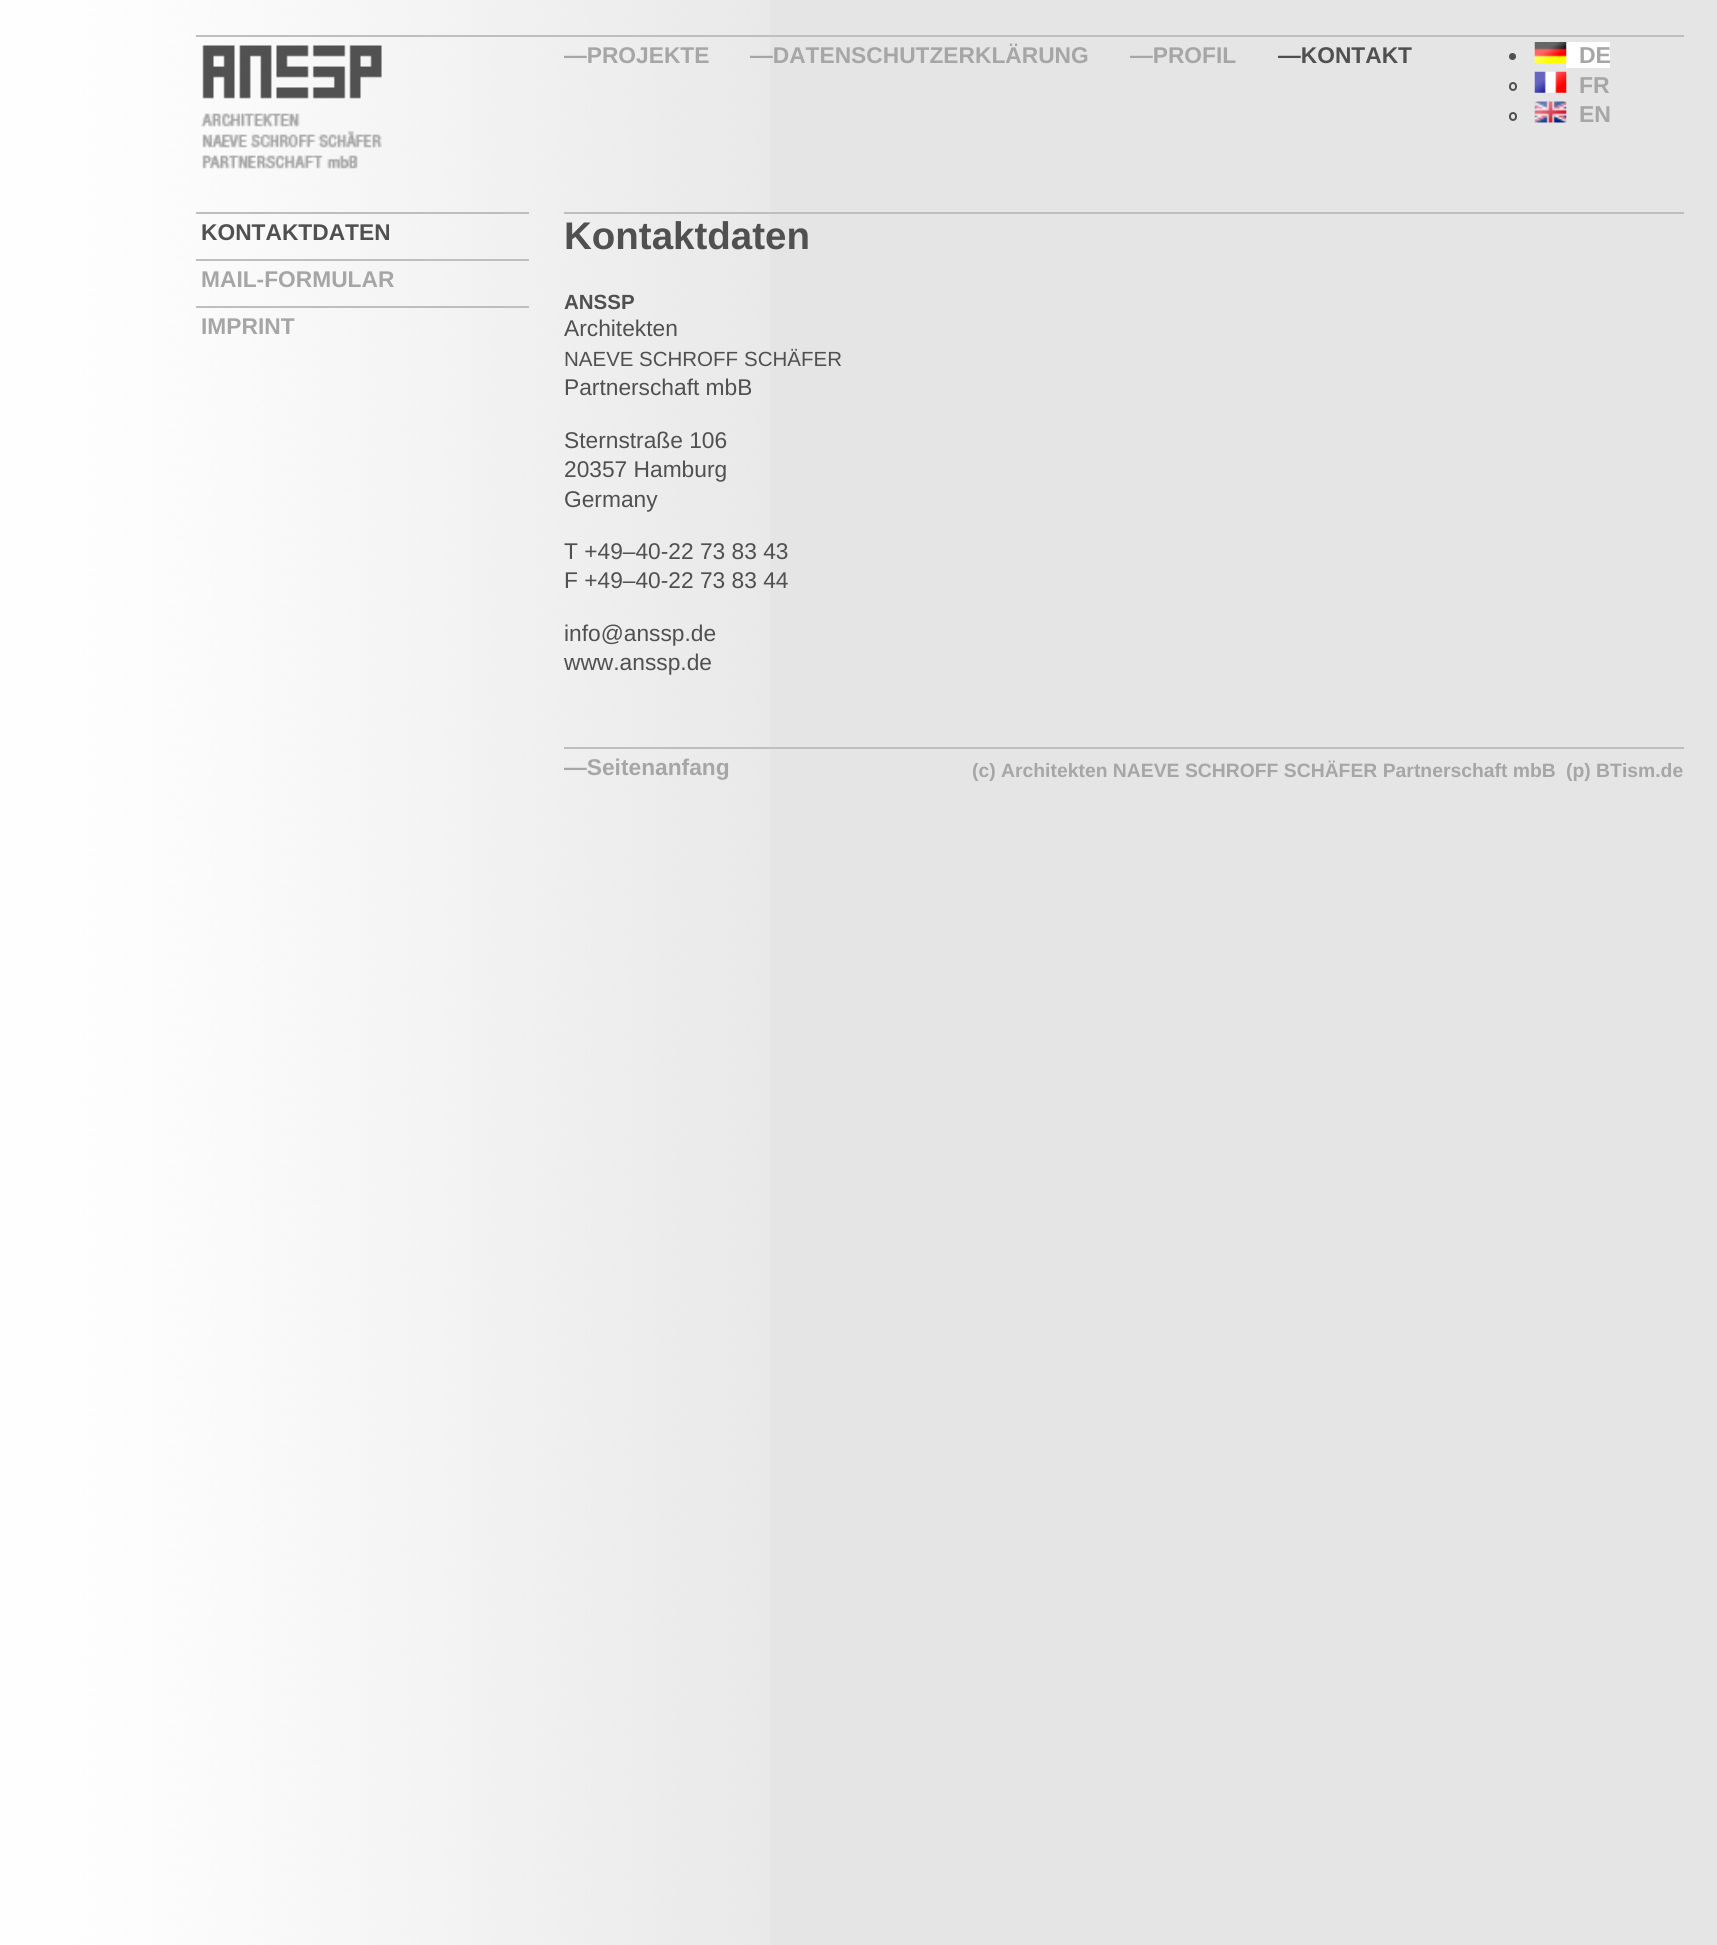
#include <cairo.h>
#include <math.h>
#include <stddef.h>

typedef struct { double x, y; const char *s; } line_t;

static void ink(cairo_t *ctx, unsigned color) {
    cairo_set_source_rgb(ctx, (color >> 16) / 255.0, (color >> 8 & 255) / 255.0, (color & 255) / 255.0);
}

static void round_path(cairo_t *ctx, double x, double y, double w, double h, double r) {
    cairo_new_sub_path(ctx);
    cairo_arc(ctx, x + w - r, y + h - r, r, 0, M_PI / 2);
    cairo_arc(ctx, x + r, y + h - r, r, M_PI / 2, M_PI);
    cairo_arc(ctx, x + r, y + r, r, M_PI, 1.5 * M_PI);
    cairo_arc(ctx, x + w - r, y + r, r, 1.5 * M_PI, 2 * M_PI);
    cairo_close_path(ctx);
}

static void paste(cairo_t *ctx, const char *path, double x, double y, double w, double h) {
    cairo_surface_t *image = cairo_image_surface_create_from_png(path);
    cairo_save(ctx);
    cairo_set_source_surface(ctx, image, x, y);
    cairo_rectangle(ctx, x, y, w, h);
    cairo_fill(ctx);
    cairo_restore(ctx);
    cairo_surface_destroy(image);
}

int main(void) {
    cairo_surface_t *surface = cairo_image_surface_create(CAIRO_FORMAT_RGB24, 1717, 1945);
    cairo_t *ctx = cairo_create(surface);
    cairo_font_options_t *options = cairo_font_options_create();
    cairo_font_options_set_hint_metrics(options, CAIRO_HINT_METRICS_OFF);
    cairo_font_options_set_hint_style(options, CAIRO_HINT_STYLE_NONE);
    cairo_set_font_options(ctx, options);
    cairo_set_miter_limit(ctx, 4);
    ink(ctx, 0xE5E5E5);
    cairo_paint(ctx);
    paste(ctx, "media/1.png", 0, 0, 770, 1945);
    ink(ctx, 0xBEBEBE);
    cairo_rectangle(ctx, 196, 35, 1488, 2);
    cairo_fill(ctx);
    paste(ctx, "media/2.png", 201, 45, 181, 124);
    cairo_select_font_face(ctx, "Liberation Sans", CAIRO_FONT_SLANT_NORMAL, CAIRO_FONT_WEIGHT_BOLD);
    cairo_set_font_size(ctx, 22.75);
    ink(ctx, 0xA6A6A6);
    {
        static const line_t items[] = {
            {564, 63, "—PROJEKTE"},
            {750, 63, "—DATENSCHUTZERKLÄRUNG"},
            {1130, 63, "—PROFIL"},
        };
        for (size_t i = 0; i < sizeof items / sizeof *items; i++) {
            cairo_move_to(ctx, items[i].x, items[i].y);
            cairo_show_text(ctx, items[i].s);
        }
    }
    ink(ctx, 0x505050);
    cairo_move_to(ctx, 1278, 63);
    cairo_show_text(ctx, "—KONTAKT");
    cairo_new_path(ctx);
    cairo_arc(ctx, 1512.5, 56.5, 3.5, 0, 2 * M_PI);
    cairo_fill(ctx);
    ink(ctx, 0xFFFFFF);
    cairo_rectangle(ctx, 1566, 42, 44, 26);
    cairo_fill(ctx);
    paste(ctx, "media/3.png", 1534, 42, 33, 21);
    cairo_set_font_size(ctx, 23);
    ink(ctx, 0xA6A6A6);
    cairo_move_to(ctx, 1579, 63);
    cairo_show_text(ctx, "DE");
    round_path(ctx, 1510, 83, 6, 7, 3);
    ink(ctx, 0x505050);
    cairo_stroke(ctx);
    paste(ctx, "media/4.png", 1534, 71, 33, 22);
    ink(ctx, 0xA6A6A6);
    cairo_move_to(ctx, 1579, 93);
    cairo_show_text(ctx, "FR");
    round_path(ctx, 1510, 113, 6, 7, 3);
    ink(ctx, 0x505050);
    cairo_stroke(ctx);
    paste(ctx, "media/5.png", 1534, 101, 33, 22);
    ink(ctx, 0xA6A6A6);
    cairo_move_to(ctx, 1579, 122);
    cairo_show_text(ctx, "EN");
    ink(ctx, 0xBEBEBE);
    cairo_rectangle(ctx, 196, 212, 333, 2);
    cairo_fill(ctx);
    cairo_set_font_size(ctx, 22.75);
    ink(ctx, 0x505050);
    cairo_move_to(ctx, 201, 240);
    cairo_show_text(ctx, "KONTAKTDATEN");
    ink(ctx, 0xBEBEBE);
    cairo_rectangle(ctx, 196, 259, 333, 2);
    cairo_fill(ctx);
    ink(ctx, 0xA6A6A6);
    cairo_move_to(ctx, 201, 287);
    cairo_show_text(ctx, "MAIL-FORMULAR");
    ink(ctx, 0xBEBEBE);
    cairo_rectangle(ctx, 196, 306, 333, 2);
    cairo_fill(ctx);
    ink(ctx, 0xA6A6A6);
    cairo_move_to(ctx, 201, 334);
    cairo_show_text(ctx, "IMPRINT");
    ink(ctx, 0xBEBEBE);
    cairo_rectangle(ctx, 564, 212, 1120, 2);
    cairo_fill(ctx);
    cairo_set_font_size(ctx, 38.5);
    ink(ctx, 0x505050);
    cairo_move_to(ctx, 564, 249);
    cairo_show_text(ctx, "Kontaktdaten");
    cairo_set_font_size(ctx, 20.5);
    cairo_move_to(ctx, 564, 309);
    cairo_show_text(ctx, "ANSSP");
    cairo_select_font_face(ctx, "Liberation Sans", CAIRO_FONT_SLANT_NORMAL, CAIRO_FONT_WEIGHT_NORMAL);
    cairo_set_font_size(ctx, 22.75);
    cairo_move_to(ctx, 564, 336);
    cairo_show_text(ctx, "Architekten");
    cairo_set_font_size(ctx, 20.5);
    {
        static const line_t items[] = {
            {564, 366, "NAEVE"},
            {639, 366, "SCHROFF"},
            {744, 366, "SCHÄFER"},
        };
        for (size_t i = 0; i < sizeof items / sizeof *items; i++) {
            cairo_move_to(ctx, items[i].x, items[i].y);
            cairo_show_text(ctx, items[i].s);
        }
    }
    cairo_set_font_size(ctx, 22.75);
    {
        static const line_t items[] = {
            {564, 395, "Partnerschaft mbB"},
            {564, 448, "Sternstraße 106"},
            {564, 477, "20357 Hamburg"},
            {564, 507, "Germany"},
            {564, 559, "T +49–40-22 73 83 43"},
            {564, 588, "F +49–40-22 73 83 44"},
            {564, 641, "info@anssp.de"},
            {564, 670, "www.anssp.de"},
        };
        for (size_t i = 0; i < sizeof items / sizeof *items; i++) {
            cairo_move_to(ctx, items[i].x, items[i].y);
            cairo_show_text(ctx, items[i].s);
        }
    }
    ink(ctx, 0xBEBEBE);
    cairo_rectangle(ctx, 564, 747, 1120, 2);
    cairo_fill(ctx);
    cairo_select_font_face(ctx, "Liberation Sans", CAIRO_FONT_SLANT_NORMAL, CAIRO_FONT_WEIGHT_BOLD);
    ink(ctx, 0xA6A6A6);
    cairo_move_to(ctx, 564, 775);
    cairo_show_text(ctx, "—Seitenanfang");
    cairo_set_font_size(ctx, 19.35);
    cairo_move_to(ctx, 972, 777);
    cairo_show_text(ctx, "(c) Architekten NAEVE SCHROFF SCHÄFER Partnerschaft mbB");
    cairo_move_to(ctx, 1566, 777);
    cairo_show_text(ctx, "(p) BTism.de");
    cairo_surface_write_to_png(surface, "image.png");
    cairo_font_options_destroy(options);
    cairo_destroy(ctx);
    cairo_surface_destroy(surface);
    return 0;
}
